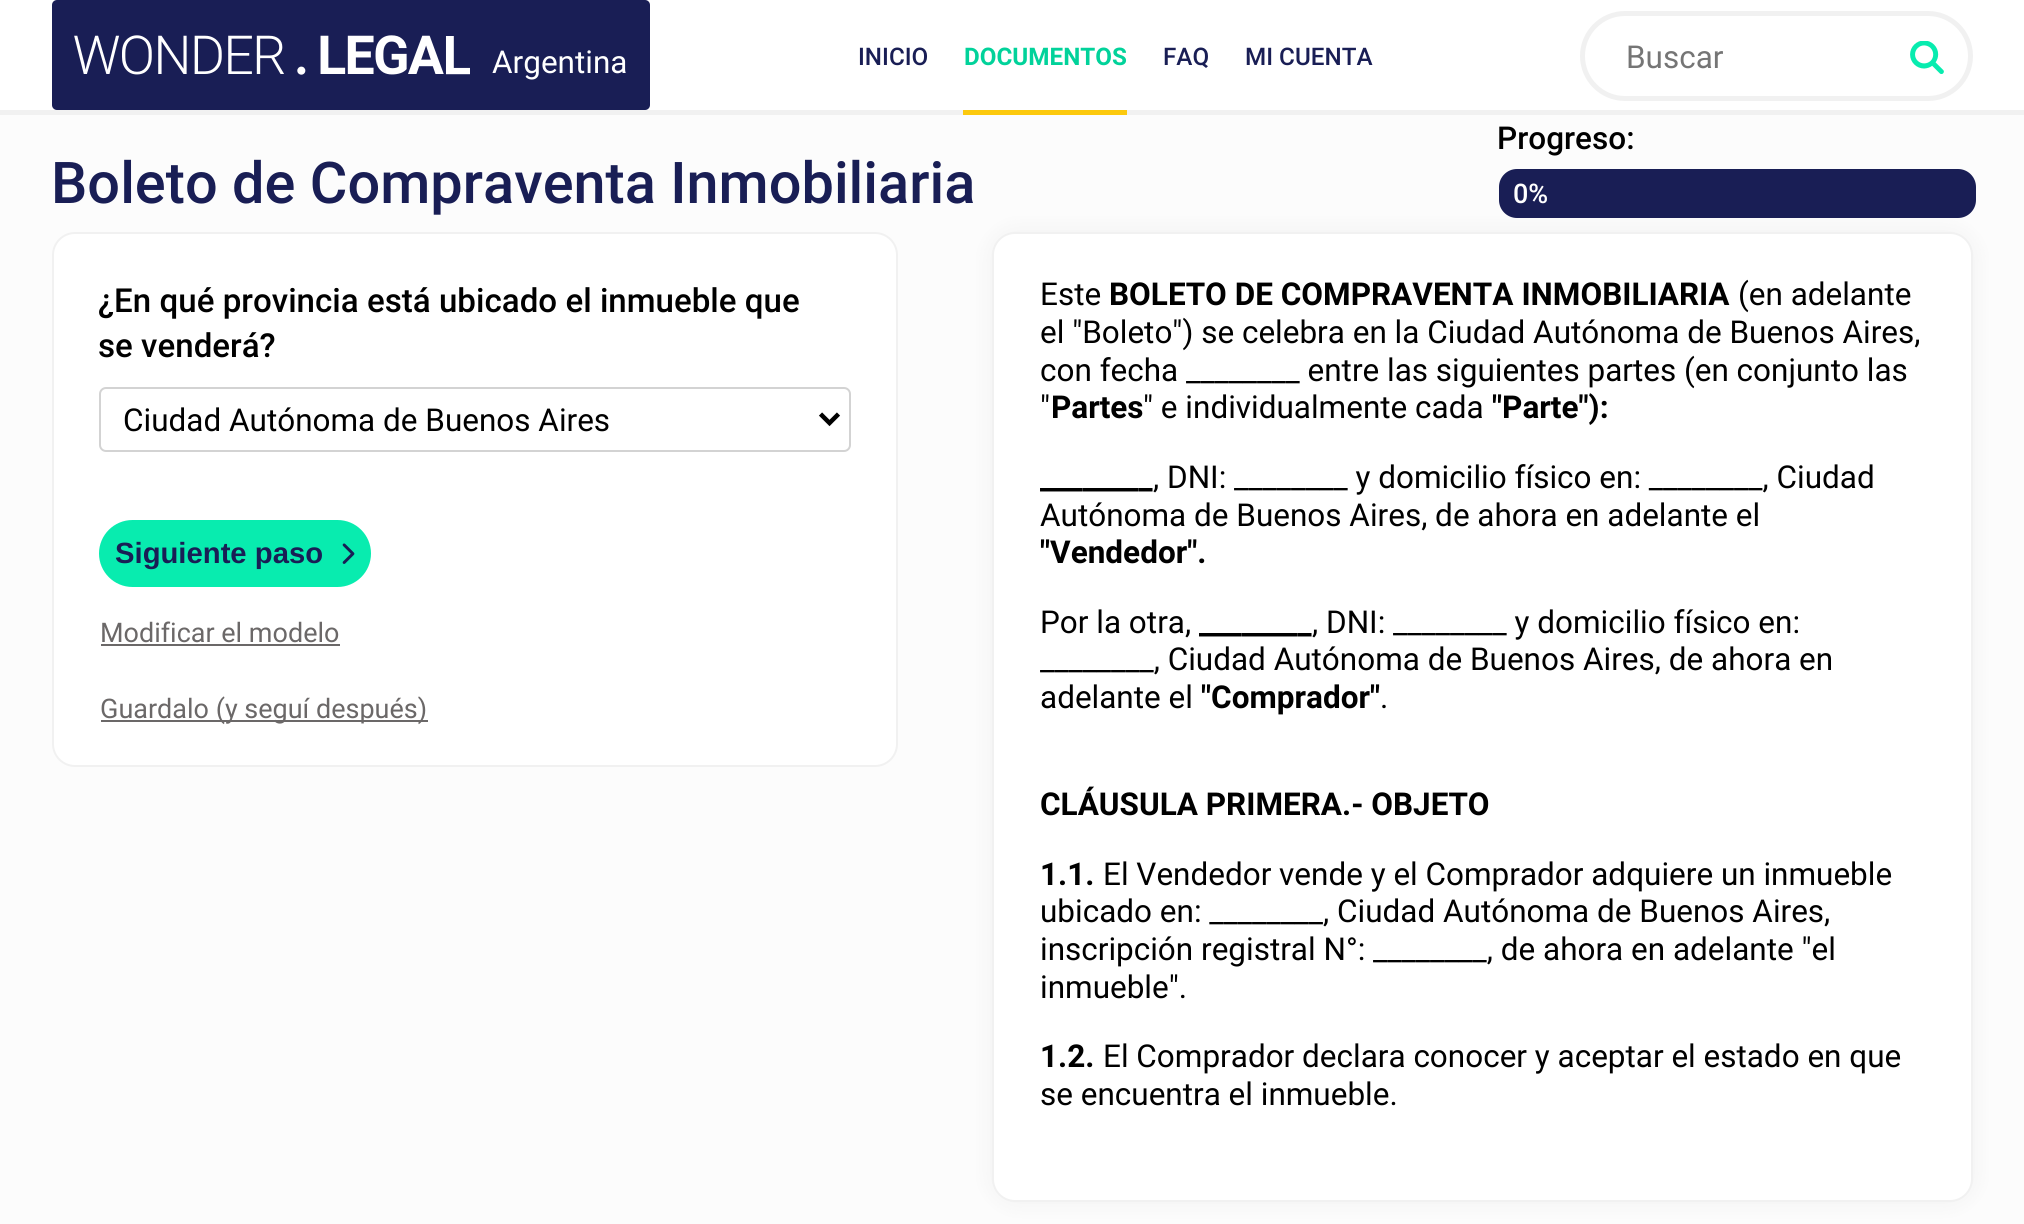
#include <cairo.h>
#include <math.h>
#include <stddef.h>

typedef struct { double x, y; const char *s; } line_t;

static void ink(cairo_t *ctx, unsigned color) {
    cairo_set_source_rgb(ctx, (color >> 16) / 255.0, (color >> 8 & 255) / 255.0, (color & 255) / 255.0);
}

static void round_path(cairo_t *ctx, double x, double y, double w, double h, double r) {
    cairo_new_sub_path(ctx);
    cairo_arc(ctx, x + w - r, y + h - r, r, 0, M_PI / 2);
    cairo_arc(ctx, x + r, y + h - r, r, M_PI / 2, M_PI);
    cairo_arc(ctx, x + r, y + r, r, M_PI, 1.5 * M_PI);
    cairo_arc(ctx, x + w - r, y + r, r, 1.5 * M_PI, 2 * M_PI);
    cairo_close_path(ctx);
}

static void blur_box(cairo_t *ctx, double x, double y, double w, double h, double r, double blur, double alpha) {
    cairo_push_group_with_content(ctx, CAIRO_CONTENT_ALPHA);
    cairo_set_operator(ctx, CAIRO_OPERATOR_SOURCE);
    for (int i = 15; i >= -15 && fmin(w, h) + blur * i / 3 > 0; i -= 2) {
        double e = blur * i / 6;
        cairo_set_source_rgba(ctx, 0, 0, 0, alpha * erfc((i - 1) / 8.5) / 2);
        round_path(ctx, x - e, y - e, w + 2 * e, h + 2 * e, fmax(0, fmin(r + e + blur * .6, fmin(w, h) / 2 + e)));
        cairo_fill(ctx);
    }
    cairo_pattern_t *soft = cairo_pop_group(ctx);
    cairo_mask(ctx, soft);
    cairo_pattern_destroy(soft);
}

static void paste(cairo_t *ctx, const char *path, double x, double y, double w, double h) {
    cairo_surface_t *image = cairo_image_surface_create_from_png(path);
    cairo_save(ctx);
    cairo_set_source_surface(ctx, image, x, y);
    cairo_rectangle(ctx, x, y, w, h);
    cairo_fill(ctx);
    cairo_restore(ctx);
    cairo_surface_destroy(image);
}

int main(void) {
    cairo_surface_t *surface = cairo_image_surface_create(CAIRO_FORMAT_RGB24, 2024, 1224);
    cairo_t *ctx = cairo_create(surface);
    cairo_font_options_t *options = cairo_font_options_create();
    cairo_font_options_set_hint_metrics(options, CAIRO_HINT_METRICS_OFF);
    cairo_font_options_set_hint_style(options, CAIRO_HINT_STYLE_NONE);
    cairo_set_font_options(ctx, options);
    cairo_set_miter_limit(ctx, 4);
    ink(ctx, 0xFCFCFC);
    cairo_paint(ctx);
    ink(ctx, 0xFFFFFF);
    cairo_rectangle(ctx, 0, 0, 2024, 110);
    cairo_fill(ctx);
    ink(ctx, 0xF1F1F1);
    cairo_rectangle(ctx, 0, 110, 2024, 5);
    cairo_fill(ctx);
    ink(ctx, 0x191E55);
    round_path(ctx, 52, 0, 598, 110, 5);
    cairo_fill(ctx);
    paste(ctx, "media/1.png", 74, 35, 396, 40);
    cairo_select_font_face(ctx, "Roboto", CAIRO_FONT_SLANT_NORMAL, CAIRO_FONT_WEIGHT_NORMAL);
    cairo_set_font_size(ctx, 31.5);
    ink(ctx, 0xFFFFFF);
    cairo_move_to(ctx, 492, 73);
    cairo_show_text(ctx, "Argentina");
    cairo_select_font_face(ctx, "Roboto Medium", CAIRO_FONT_SLANT_NORMAL, CAIRO_FONT_WEIGHT_NORMAL);
    cairo_set_font_size(ctx, 24.25);
    ink(ctx, 0x191E55);
    cairo_move_to(ctx, 858, 65);
    cairo_show_text(ctx, "INICIO");
    ink(ctx, 0xFCC90D);
    cairo_rectangle(ctx, 963, 110, 164, 5);
    cairo_fill(ctx);
    cairo_select_font_face(ctx, "Roboto", CAIRO_FONT_SLANT_NORMAL, CAIRO_FONT_WEIGHT_BOLD);
    ink(ctx, 0x01D29A);
    cairo_move_to(ctx, 964, 65);
    cairo_show_text(ctx, "DOCUMENTOS");
    cairo_select_font_face(ctx, "Roboto Medium", CAIRO_FONT_SLANT_NORMAL, CAIRO_FONT_WEIGHT_NORMAL);
    ink(ctx, 0x191E55);
    cairo_move_to(ctx, 1163, 65);
    cairo_show_text(ctx, "FAQ");
    cairo_move_to(ctx, 1245, 65);
    cairo_show_text(ctx, "MI CUENTA");
    round_path(ctx, 1582.5, 13.5, 388, 85, 42.5);
    ink(ctx, 0xF1F1F1);
    cairo_set_line_width(ctx, 5);
    cairo_stroke(ctx);
    cairo_select_font_face(ctx, "Roboto", CAIRO_FONT_SLANT_NORMAL, CAIRO_FONT_WEIGHT_NORMAL);
    cairo_set_font_size(ctx, 31.5);
    ink(ctx, 0x757575);
    cairo_move_to(ctx, 1626, 68);
    cairo_show_text(ctx, "Buscar");
    paste(ctx, "media/2.png", 1910, 41, 34, 33);
    ink(ctx, 0x000000);
    blur_box(ctx, 992, 232, 981, 970, 23, 11, 0.05);
    cairo_select_font_face(ctx, "Roboto Medium", CAIRO_FONT_SLANT_NORMAL, CAIRO_FONT_WEIGHT_NORMAL);
    cairo_set_font_size(ctx, 57.6);
    ink(ctx, 0x191E55);
    cairo_move_to(ctx, 51, 203);
    cairo_show_text(ctx, "Boleto de Compraventa Inmobiliaria");
    cairo_set_font_size(ctx, 31.5);
    ink(ctx, 0x000000);
    cairo_move_to(ctx, 1497, 149);
    cairo_show_text(ctx, "Progreso:");
    ink(ctx, 0x191E55);
    round_path(ctx, 1499, 169, 477, 49, 18);
    cairo_fill(ctx);
    cairo_set_font_size(ctx, 27);
    ink(ctx, 0xFFFFFF);
    cairo_move_to(ctx, 1513, 203);
    cairo_show_text(ctx, "0%");
    round_path(ctx, 53, 233, 844, 533, 22);
    cairo_fill_preserve(ctx);
    ink(ctx, 0xF1F1F1);
    cairo_set_line_width(ctx, 2);
    cairo_stroke(ctx);
    cairo_set_font_size(ctx, 33.1);
    ink(ctx, 0x000000);
    cairo_move_to(ctx, 98, 312);
    cairo_show_text(ctx, "¿En qué provincia está ubicado el inmueble que");
    cairo_move_to(ctx, 98, 357);
    cairo_show_text(ctx, "se venderá?");
    round_path(ctx, 100, 388, 750, 63, 6);
    ink(ctx, 0xD3D3D3);
    cairo_stroke(ctx);
    cairo_new_path(ctx);
    cairo_move_to(ctx, 820.5, 414);
    cairo_line_to(ctx, 829.5, 423);
    cairo_line_to(ctx, 838.5, 414);
    ink(ctx, 0x000000);
    cairo_set_line_width(ctx, 4.5);
    cairo_stroke(ctx);
    cairo_select_font_face(ctx, "Roboto", CAIRO_FONT_SLANT_NORMAL, CAIRO_FONT_WEIGHT_NORMAL);
    cairo_set_font_size(ctx, 31.5);
    cairo_move_to(ctx, 123, 431);
    cairo_show_text(ctx, "Ciudad Autónoma de Buenos Aires");
    ink(ctx, 0x08ECAF);
    round_path(ctx, 99, 520, 272, 67, 33.5);
    cairo_fill(ctx);
    cairo_select_font_face(ctx, "Liberation Sans", CAIRO_FONT_SLANT_NORMAL, CAIRO_FONT_WEIGHT_BOLD);
    cairo_set_font_size(ctx, 29.25);
    ink(ctx, 0x191E55);
    cairo_move_to(ctx, 115, 563);
    cairo_show_text(ctx, "Siguiente paso");
    paste(ctx, "media/3.png", 342, 543, 13, 21);
    cairo_select_font_face(ctx, "Roboto", CAIRO_FONT_SLANT_NORMAL, CAIRO_FONT_WEIGHT_NORMAL);
    cairo_set_font_size(ctx, 27);
    ink(ctx, 0x6B6868);
    cairo_move_to(ctx, 100, 642);
    cairo_show_text(ctx, "Modificar el modelo");
    cairo_rectangle(ctx, 101, 644, 239, 2);
    cairo_fill(ctx);
    cairo_rectangle(ctx, 101, 720, 327, 2);
    cairo_fill(ctx);
    cairo_move_to(ctx, 100, 718);
    cairo_show_text(ctx, "Guardalo (y seguí después)");
    ink(ctx, 0xFFFFFF);
    round_path(ctx, 993, 233, 979, 968, 22);
    cairo_fill_preserve(ctx);
    ink(ctx, 0xF1F1F1);
    cairo_set_line_width(ctx, 2);
    cairo_stroke(ctx);
    cairo_set_font_size(ctx, 31.5);
    ink(ctx, 0x000000);
    cairo_move_to(ctx, 1040, 305);
    cairo_show_text(ctx, "Este");
    cairo_select_font_face(ctx, "Roboto", CAIRO_FONT_SLANT_NORMAL, CAIRO_FONT_WEIGHT_BOLD);
    cairo_move_to(ctx, 1109, 305);
    cairo_show_text(ctx, "BOLETO DE COMPRAVENTA INMOBILIARIA");
    cairo_select_font_face(ctx, "Roboto", CAIRO_FONT_SLANT_NORMAL, CAIRO_FONT_WEIGHT_NORMAL);
    {
        static const line_t items[] = {
            {1738, 305, "(en adelante"},
            {1040, 343, "el \"Boleto\") se celebra en la Ciudad Autónoma de Buenos Aires,"},
            {1040, 381, "con fecha ________ entre las siguientes partes (en conjunto las"},
            {1040, 418, "\""},
        };
        for (size_t i = 0; i < sizeof items / sizeof *items; i++) {
            cairo_move_to(ctx, items[i].x, items[i].y);
            cairo_show_text(ctx, items[i].s);
        }
    }
    cairo_select_font_face(ctx, "Roboto", CAIRO_FONT_SLANT_NORMAL, CAIRO_FONT_WEIGHT_BOLD);
    cairo_move_to(ctx, 1051, 418);
    cairo_show_text(ctx, "Partes");
    cairo_select_font_face(ctx, "Roboto", CAIRO_FONT_SLANT_NORMAL, CAIRO_FONT_WEIGHT_NORMAL);
    cairo_move_to(ctx, 1143, 418);
    cairo_show_text(ctx, "\" e individualmente cada");
    cairo_select_font_face(ctx, "Roboto", CAIRO_FONT_SLANT_NORMAL, CAIRO_FONT_WEIGHT_BOLD);
    cairo_move_to(ctx, 1492, 418);
    cairo_show_text(ctx, "\"Parte\"):");
    cairo_move_to(ctx, 1040, 488);
    cairo_show_text(ctx, "________");
    cairo_select_font_face(ctx, "Roboto", CAIRO_FONT_SLANT_NORMAL, CAIRO_FONT_WEIGHT_NORMAL);
    cairo_move_to(ctx, 1153, 488);
    cairo_show_text(ctx, ", DNI: ________ y domicilio físico en: ________, Ciudad");
    cairo_move_to(ctx, 1040, 526);
    cairo_show_text(ctx, "Autónoma de Buenos Aires, de ahora en adelante el");
    cairo_select_font_face(ctx, "Roboto", CAIRO_FONT_SLANT_NORMAL, CAIRO_FONT_WEIGHT_BOLD);
    cairo_move_to(ctx, 1040, 563);
    cairo_show_text(ctx, "\"Vendedor\".");
    cairo_select_font_face(ctx, "Roboto", CAIRO_FONT_SLANT_NORMAL, CAIRO_FONT_WEIGHT_NORMAL);
    cairo_move_to(ctx, 1040, 633);
    cairo_show_text(ctx, "Por la otra,");
    cairo_select_font_face(ctx, "Roboto", CAIRO_FONT_SLANT_NORMAL, CAIRO_FONT_WEIGHT_BOLD);
    cairo_move_to(ctx, 1199, 633);
    cairo_show_text(ctx, "________");
    cairo_select_font_face(ctx, "Roboto", CAIRO_FONT_SLANT_NORMAL, CAIRO_FONT_WEIGHT_NORMAL);
    {
        static const line_t items[] = {
            {1312, 633, ", DNI: ________ y domicilio físico en:"},
            {1040, 670, "________, Ciudad Autónoma de Buenos Aires, de ahora en"},
            {1040, 708, "adelante el"},
        };
        for (size_t i = 0; i < sizeof items / sizeof *items; i++) {
            cairo_move_to(ctx, items[i].x, items[i].y);
            cairo_show_text(ctx, items[i].s);
        }
    }
    cairo_select_font_face(ctx, "Roboto", CAIRO_FONT_SLANT_NORMAL, CAIRO_FONT_WEIGHT_BOLD);
    cairo_move_to(ctx, 1201, 708);
    cairo_show_text(ctx, "\"Comprador\"");
    cairo_select_font_face(ctx, "Roboto", CAIRO_FONT_SLANT_NORMAL, CAIRO_FONT_WEIGHT_NORMAL);
    cairo_move_to(ctx, 1380, 708);
    cairo_show_text(ctx, ".");
    cairo_select_font_face(ctx, "Roboto", CAIRO_FONT_SLANT_NORMAL, CAIRO_FONT_WEIGHT_BOLD);
    cairo_move_to(ctx, 1040, 815);
    cairo_show_text(ctx, "CLÁUSULA PRIMERA.- OBJETO");
    cairo_move_to(ctx, 1040, 885);
    cairo_show_text(ctx, "1.1.");
    cairo_select_font_face(ctx, "Roboto", CAIRO_FONT_SLANT_NORMAL, CAIRO_FONT_WEIGHT_NORMAL);
    {
        static const line_t items[] = {
            {1103, 885, "El Vendedor vende y el Comprador adquiere un inmueble"},
            {1040, 922, "ubicado en: ________, Ciudad Autónoma de Buenos Aires,"},
            {1040, 960, "inscripción registral N°: ________, de ahora en adelante \"el"},
            {1040, 998, "inmueble\"."},
        };
        for (size_t i = 0; i < sizeof items / sizeof *items; i++) {
            cairo_move_to(ctx, items[i].x, items[i].y);
            cairo_show_text(ctx, items[i].s);
        }
    }
    cairo_select_font_face(ctx, "Roboto", CAIRO_FONT_SLANT_NORMAL, CAIRO_FONT_WEIGHT_BOLD);
    cairo_move_to(ctx, 1040, 1067);
    cairo_show_text(ctx, "1.2.");
    cairo_select_font_face(ctx, "Roboto", CAIRO_FONT_SLANT_NORMAL, CAIRO_FONT_WEIGHT_NORMAL);
    cairo_move_to(ctx, 1103, 1067);
    cairo_show_text(ctx, "El Comprador declara conocer y aceptar el estado en que");
    cairo_move_to(ctx, 1040, 1105);
    cairo_show_text(ctx, "se encuentra el inmueble.");
    cairo_surface_write_to_png(surface, "image.png");
    cairo_font_options_destroy(options);
    cairo_destroy(ctx);
    cairo_surface_destroy(surface);
    return 0;
}
